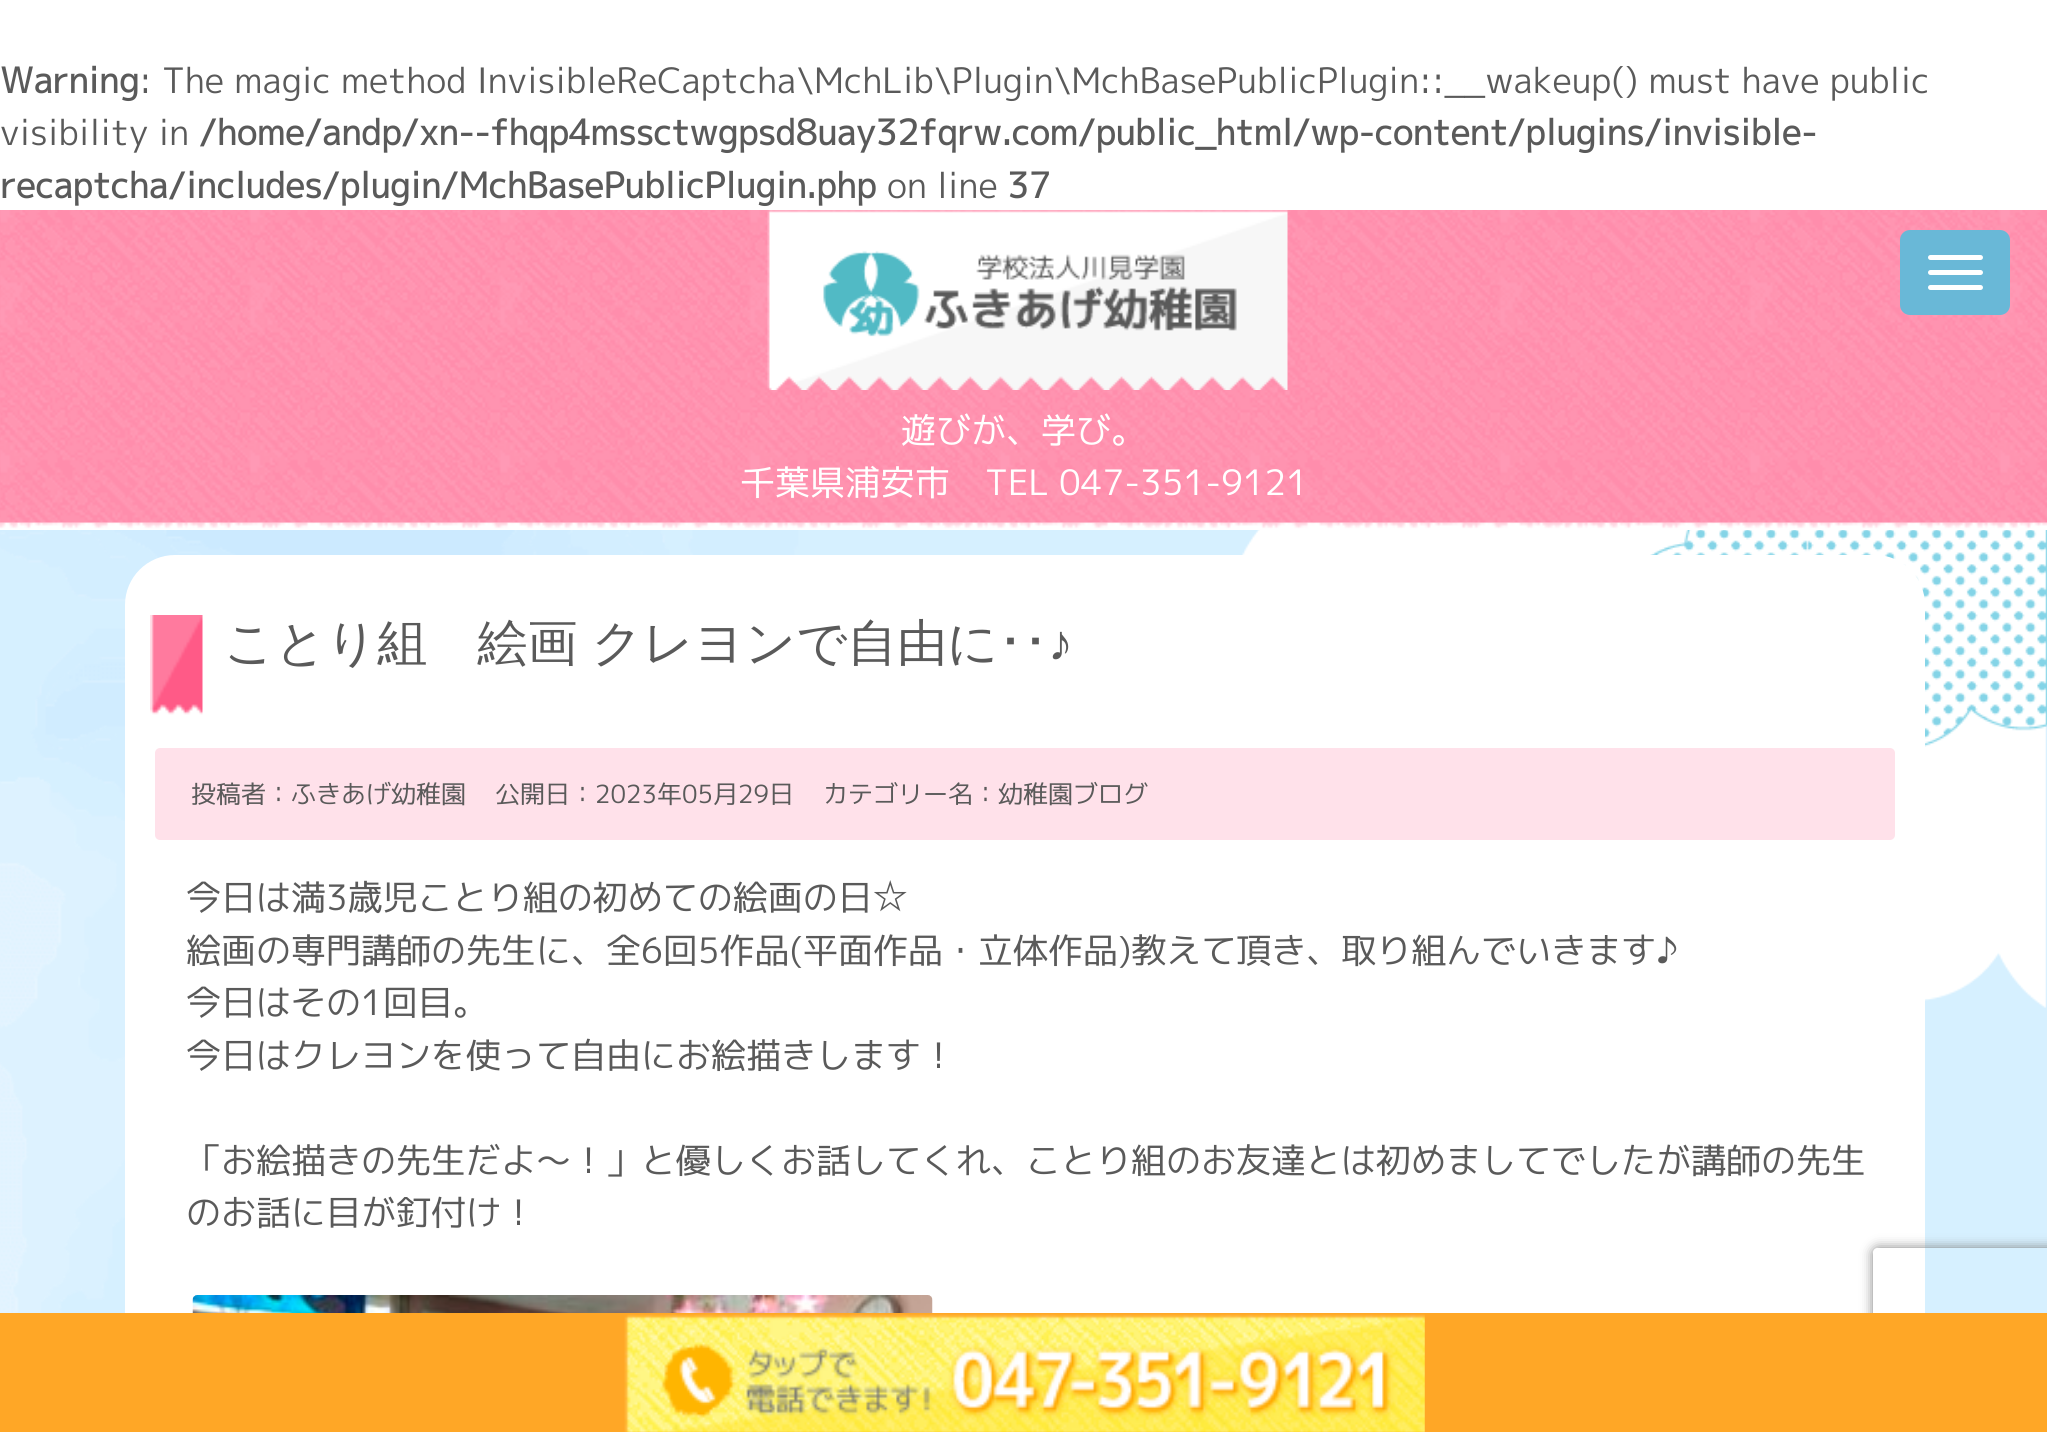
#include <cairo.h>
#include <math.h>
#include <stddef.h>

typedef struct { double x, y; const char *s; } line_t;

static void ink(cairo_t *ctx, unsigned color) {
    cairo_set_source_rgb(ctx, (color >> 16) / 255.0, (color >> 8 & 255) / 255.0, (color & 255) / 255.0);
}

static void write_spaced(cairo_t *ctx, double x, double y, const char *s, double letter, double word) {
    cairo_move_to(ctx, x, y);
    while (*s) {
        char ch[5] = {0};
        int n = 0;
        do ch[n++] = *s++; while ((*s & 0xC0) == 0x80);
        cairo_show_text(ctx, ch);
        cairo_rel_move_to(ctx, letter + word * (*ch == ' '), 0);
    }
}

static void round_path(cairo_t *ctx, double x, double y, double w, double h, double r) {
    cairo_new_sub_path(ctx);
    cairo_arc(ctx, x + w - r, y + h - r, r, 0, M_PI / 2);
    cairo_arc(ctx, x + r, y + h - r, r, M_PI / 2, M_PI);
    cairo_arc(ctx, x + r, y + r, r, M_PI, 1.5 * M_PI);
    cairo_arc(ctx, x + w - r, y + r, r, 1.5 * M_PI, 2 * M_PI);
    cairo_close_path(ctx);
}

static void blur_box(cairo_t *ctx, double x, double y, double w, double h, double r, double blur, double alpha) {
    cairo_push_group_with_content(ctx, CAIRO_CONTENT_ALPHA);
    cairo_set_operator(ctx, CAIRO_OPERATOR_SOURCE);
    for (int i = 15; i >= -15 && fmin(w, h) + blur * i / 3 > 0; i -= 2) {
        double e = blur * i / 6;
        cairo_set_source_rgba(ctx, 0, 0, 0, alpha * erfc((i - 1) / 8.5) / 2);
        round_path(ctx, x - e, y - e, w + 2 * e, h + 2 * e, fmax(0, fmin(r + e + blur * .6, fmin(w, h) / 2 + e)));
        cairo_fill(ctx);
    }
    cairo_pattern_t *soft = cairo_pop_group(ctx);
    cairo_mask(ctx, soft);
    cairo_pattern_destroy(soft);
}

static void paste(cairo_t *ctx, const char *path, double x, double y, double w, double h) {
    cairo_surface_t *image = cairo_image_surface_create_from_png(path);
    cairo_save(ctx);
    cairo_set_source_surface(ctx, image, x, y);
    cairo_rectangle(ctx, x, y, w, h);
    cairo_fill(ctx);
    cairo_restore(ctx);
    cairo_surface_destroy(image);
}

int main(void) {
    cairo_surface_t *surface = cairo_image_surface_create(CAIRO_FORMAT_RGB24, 2047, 1432);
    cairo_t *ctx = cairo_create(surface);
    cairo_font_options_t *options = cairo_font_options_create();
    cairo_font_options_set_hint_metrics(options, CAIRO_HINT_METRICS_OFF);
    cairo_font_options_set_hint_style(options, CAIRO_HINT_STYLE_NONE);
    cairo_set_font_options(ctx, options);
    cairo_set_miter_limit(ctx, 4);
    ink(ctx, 0xFFFFFF);
    cairo_paint(ctx);
    cairo_select_font_face(ctx, "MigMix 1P", CAIRO_FONT_SLANT_NORMAL, CAIRO_FONT_WEIGHT_BOLD);
    cairo_set_font_size(ctx, 35);
    ink(ctx, 0x5A5A5A);
    cairo_move_to(ctx, 0, 93);
    cairo_show_text(ctx, "Warning");
    cairo_select_font_face(ctx, "MigMix 1P", CAIRO_FONT_SLANT_NORMAL, CAIRO_FONT_WEIGHT_NORMAL);
    cairo_move_to(ctx, 139, 93);
    cairo_show_text(ctx, ": The magic method InvisibleReCaptcha\\MchLib\\Plugin\\MchBasePublicPlugin::__wakeup() must have public");
    cairo_move_to(ctx, 0, 145);
    cairo_show_text(ctx, "visibility in");
    cairo_select_font_face(ctx, "MigMix 1P", CAIRO_FONT_SLANT_NORMAL, CAIRO_FONT_WEIGHT_BOLD);
    cairo_move_to(ctx, 199, 145);
    cairo_show_text(ctx, "/home/andp/xn--fhqp4mssctwgpsd8uay32fqrw.com/public_html/wp-content/plugins/invisible-");
    cairo_move_to(ctx, 0, 198);
    cairo_show_text(ctx, "recaptcha/includes/plugin/MchBasePublicPlugin.php");
    cairo_select_font_face(ctx, "MigMix 1P", CAIRO_FONT_SLANT_NORMAL, CAIRO_FONT_WEIGHT_NORMAL);
    cairo_move_to(ctx, 887, 198);
    cairo_show_text(ctx, "on line");
    cairo_select_font_face(ctx, "MigMix 1P", CAIRO_FONT_SLANT_NORMAL, CAIRO_FONT_WEIGHT_BOLD);
    cairo_move_to(ctx, 1007, 198);
    cairo_show_text(ctx, "37");
    paste(ctx, "media/3.png", 0, 522, 2047, 7);
    paste(ctx, "media/1.png", 0, 210, 2047, 313);
    ink(ctx, 0x69B8D7);
    round_path(ctx, 1901.5, 231.5, 107, 82, 8.5);
    cairo_fill_preserve(ctx);
    cairo_set_line_width(ctx, 3);
    cairo_stroke(ctx);
    ink(ctx, 0xFFFFFF);
    round_path(ctx, 1928, 255, 55, 5, 2.5);
    cairo_fill(ctx);
    round_path(ctx, 1928, 270, 55, 5, 2.5);
    cairo_fill(ctx);
    round_path(ctx, 1928, 285, 55, 5, 2.5);
    cairo_fill(ctx);
    paste(ctx, "media/2.png", 767, 210, 521, 180);
    cairo_select_font_face(ctx, "MigMix 1P", CAIRO_FONT_SLANT_NORMAL, CAIRO_FONT_WEIGHT_NORMAL);
    cairo_move_to(ctx, 901, 443);
    cairo_show_text(ctx, "遊びが、学び。");
    cairo_move_to(ctx, 740, 495);
    cairo_show_text(ctx, "千葉県浦安市　TEL 047-351-9121");
    paste(ctx, "media/4.png", 0, 530, 2047, 783);
    round_path(ctx, 125, 555, 1800, 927, 50);
    cairo_fill(ctx);
    paste(ctx, "media/5.png", 150, 615, 53, 100);
    cairo_select_font_face(ctx, "WenQuanYi Zen Hei Medium", CAIRO_FONT_SLANT_NORMAL, CAIRO_FONT_WEIGHT_NORMAL);
    cairo_set_font_size(ctx, 50);
    ink(ctx, 0x5A5A5A);
    write_spaced(ctx, 224, 660, "ことり組　絵画 クレヨンで自由に", 0, -1);
    cairo_select_font_face(ctx, "IPAPGothic", CAIRO_FONT_SLANT_NORMAL, CAIRO_FONT_WEIGHT_NORMAL);
    cairo_move_to(ctx, 998, 660);
    cairo_show_text(ctx, "･･");
    cairo_select_font_face(ctx, "Liberation Sans", CAIRO_FONT_SLANT_NORMAL, CAIRO_FONT_WEIGHT_NORMAL);
    cairo_move_to(ctx, 1048, 660);
    cairo_show_text(ctx, "♪");
    ink(ctx, 0xFFE1EA);
    round_path(ctx, 152.5, 745.5, 1745, 97, 7.5);
    cairo_fill_preserve(ctx);
    ink(ctx, 0xFFFFFF);
    cairo_set_line_width(ctx, 5);
    cairo_stroke(ctx);
    cairo_select_font_face(ctx, "MigMix 1P", CAIRO_FONT_SLANT_NORMAL, CAIRO_FONT_WEIGHT_NORMAL);
    cairo_set_font_size(ctx, 25);
    ink(ctx, 0x5A5A5A);
    cairo_move_to(ctx, 191, 803);
    cairo_show_text(ctx, "投稿者：ふきあげ幼稚園    公開日：2023年05月29日    カテゴリー名：幼稚園ブログ");
    cairo_set_font_size(ctx, 35);
    {
        static const line_t items[] = {
            {186, 910, "今日は満3歳児ことり組の初めての絵画の日☆"},
            {186, 963, "絵画の専門講師の先生に、全6回5作品(平面作品・立体作品)教えて頂き、取り組んでいきます♪"},
            {186, 1015, "今日はその1回目。"},
            {186, 1068, "今日はクレヨンを使って自由にお絵描きします！"},
            {186, 1173, "「お絵描きの先生だよ〜！」と優しくお話してくれ、ことり組のお友達とは初めましてでしたが講師の先生"},
            {186, 1225, "のお話に目が釘付け！"},
        };
        for (size_t i = 0; i < sizeof items / sizeof *items; i++) {
            cairo_move_to(ctx, items[i].x, items[i].y);
            cairo_show_text(ctx, items[i].s);
        }
    }
    paste(ctx, "media/6.png", 192, 1295, 741, 18);
    cairo_save(ctx);
    cairo_set_fill_rule(ctx, CAIRO_FILL_RULE_EVEN_ODD);
    cairo_new_path(ctx);
    cairo_move_to(ctx, 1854, 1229);
    cairo_line_to(ctx, 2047, 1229);
    cairo_line_to(ctx, 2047, 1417);
    cairo_line_to(ctx, 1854, 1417);
    cairo_close_path(ctx);
    cairo_move_to(ctx, 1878, 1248);
    cairo_line_to(ctx, 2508, 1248);
    cairo_curve_to(ctx, 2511, 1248, 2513, 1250, 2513, 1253);
    cairo_line_to(ctx, 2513, 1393);
    cairo_curve_to(ctx, 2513, 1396, 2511, 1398, 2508, 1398);
    cairo_line_to(ctx, 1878, 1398);
    cairo_curve_to(ctx, 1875, 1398, 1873, 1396, 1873, 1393);
    cairo_line_to(ctx, 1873, 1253);
    cairo_curve_to(ctx, 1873, 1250, 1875, 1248, 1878, 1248);
    cairo_close_path(ctx);
    cairo_clip(ctx);
    ink(ctx, 0x808080);
    blur_box(ctx, 1873, 1248, 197, 150, 5, 6, 1);
    cairo_restore(ctx);
    ink(ctx, 0xFFA726);
    cairo_rectangle(ctx, 0, 1313, 2047, 119);
    cairo_fill(ctx);
    paste(ctx, "media/7.png", 624, 1314, 801, 118);
    cairo_surface_write_to_png(surface, "image.png");
    cairo_font_options_destroy(options);
    cairo_destroy(ctx);
    cairo_surface_destroy(surface);
    return 0;
}
